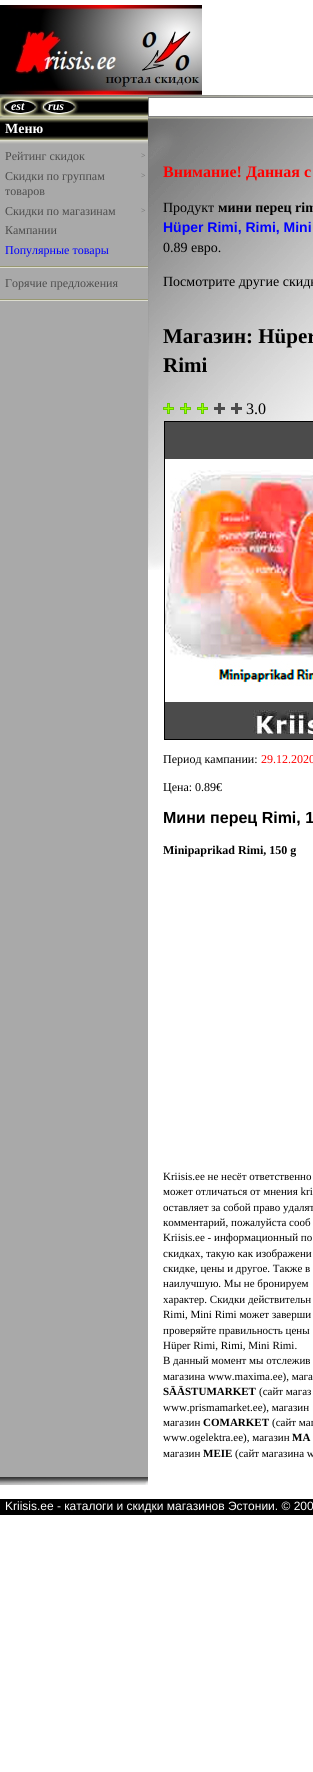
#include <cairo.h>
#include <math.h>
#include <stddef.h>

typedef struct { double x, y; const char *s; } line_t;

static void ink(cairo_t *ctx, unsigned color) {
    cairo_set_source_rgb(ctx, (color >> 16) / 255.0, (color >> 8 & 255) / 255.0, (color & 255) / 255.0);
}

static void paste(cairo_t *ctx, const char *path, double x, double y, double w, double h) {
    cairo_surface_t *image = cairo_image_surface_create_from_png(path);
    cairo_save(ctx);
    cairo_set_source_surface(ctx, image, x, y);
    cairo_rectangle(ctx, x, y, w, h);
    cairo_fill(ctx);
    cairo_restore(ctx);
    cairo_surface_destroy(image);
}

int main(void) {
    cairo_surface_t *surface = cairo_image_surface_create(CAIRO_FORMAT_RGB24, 313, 1772);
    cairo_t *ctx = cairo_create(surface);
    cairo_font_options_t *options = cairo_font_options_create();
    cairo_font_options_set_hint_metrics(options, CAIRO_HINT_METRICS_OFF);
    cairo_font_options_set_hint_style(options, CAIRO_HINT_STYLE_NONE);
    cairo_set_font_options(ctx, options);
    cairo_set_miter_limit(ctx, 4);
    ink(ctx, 0xFFFFFF);
    cairo_paint(ctx);
    paste(ctx, "media/1.png", 0, 5, 202, 90);
    paste(ctx, "media/2.png", 0, 95, 148, 24);
    cairo_select_font_face(ctx, "Liberation Serif", CAIRO_FONT_SLANT_ITALIC, CAIRO_FONT_WEIGHT_BOLD);
    cairo_set_font_size(ctx, 12);
    ink(ctx, 0xFFFFFF);
    cairo_move_to(ctx, 11, 110);
    cairo_show_text(ctx, "est");
    cairo_move_to(ctx, 48, 110);
    cairo_show_text(ctx, "rus");
    paste(ctx, "media/3.png", 148, 95, 165, 24);
    cairo_rectangle(ctx, 148.5, 97.5, 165, 19);
    cairo_fill_preserve(ctx);
    ink(ctx, 0x808080);
    cairo_set_line_width(ctx, 1);
    cairo_stroke(ctx);
    paste(ctx, "media/4.png", 0, 119, 148, 27);
    cairo_select_font_face(ctx, "Liberation Serif", CAIRO_FONT_SLANT_NORMAL, CAIRO_FONT_WEIGHT_BOLD);
    cairo_set_font_size(ctx, 14);
    ink(ctx, 0xFFFFFF);
    cairo_move_to(ctx, 5, 133);
    cairo_show_text(ctx, "Меню");
    paste(ctx, "media/5.png", 148, 119, 165, 27);
    ink(ctx, 0xA9A9A9);
    cairo_rectangle(ctx, 0, 146, 148, 1330);
    cairo_fill(ctx);
    cairo_select_font_face(ctx, "Liberation Serif", CAIRO_FONT_SLANT_NORMAL, CAIRO_FONT_WEIGHT_NORMAL);
    cairo_set_font_size(ctx, 12);
    ink(ctx, 0x4C4C4C);
    cairo_move_to(ctx, 5, 160);
    cairo_show_text(ctx, "Рейтинг скидок");
    cairo_set_font_size(ctx, 8);
    ink(ctx, 0x666666);
    cairo_move_to(ctx, 141, 158);
    cairo_show_text(ctx, ">");
    cairo_set_font_size(ctx, 12);
    ink(ctx, 0x4C4C4C);
    cairo_move_to(ctx, 5, 180);
    cairo_show_text(ctx, "Скидки по группам");
    cairo_set_font_size(ctx, 8);
    ink(ctx, 0x666666);
    cairo_move_to(ctx, 141, 178);
    cairo_show_text(ctx, ">");
    cairo_set_font_size(ctx, 12);
    ink(ctx, 0x4C4C4C);
    cairo_move_to(ctx, 5, 195);
    cairo_show_text(ctx, "товаров");
    cairo_move_to(ctx, 5, 215);
    cairo_show_text(ctx, "Скидки по магазинам");
    cairo_set_font_size(ctx, 8);
    ink(ctx, 0x666666);
    cairo_move_to(ctx, 141, 213);
    cairo_show_text(ctx, ">");
    cairo_set_font_size(ctx, 12);
    ink(ctx, 0x4C4C4C);
    cairo_move_to(ctx, 5, 234);
    cairo_show_text(ctx, "Кампании");
    ink(ctx, 0x0000FF);
    cairo_move_to(ctx, 5, 254);
    cairo_show_text(ctx, "Популярные товары");
    ink(ctx, 0x989871);
    cairo_rectangle(ctx, 0, 266, 148, 1);
    cairo_fill(ctx);
    ink(ctx, 0xDCDCCF);
    cairo_rectangle(ctx, 0, 267, 148, 1);
    cairo_fill(ctx);
    ink(ctx, 0x4C4C4C);
    cairo_move_to(ctx, 5, 287);
    cairo_show_text(ctx, "Горячие предложения");
    ink(ctx, 0x989871);
    cairo_rectangle(ctx, 0, 299, 148, 1);
    cairo_fill(ctx);
    ink(ctx, 0xDCDCCF);
    cairo_rectangle(ctx, 0, 300, 148, 1);
    cairo_fill(ctx);
    paste(ctx, "media/6.png", 148, 146, 165, 424);
    cairo_select_font_face(ctx, "Liberation Serif", CAIRO_FONT_SLANT_NORMAL, CAIRO_FONT_WEIGHT_BOLD);
    cairo_set_font_size(ctx, 16);
    ink(ctx, 0xFF0000);
    cairo_move_to(ctx, 163, 177);
    cairo_show_text(ctx, "Внимание! Данная с");
    cairo_select_font_face(ctx, "Liberation Serif", CAIRO_FONT_SLANT_NORMAL, CAIRO_FONT_WEIGHT_NORMAL);
    cairo_set_font_size(ctx, 14);
    ink(ctx, 0x000000);
    cairo_move_to(ctx, 163, 212);
    cairo_show_text(ctx, "Продукт");
    cairo_select_font_face(ctx, "Liberation Serif", CAIRO_FONT_SLANT_NORMAL, CAIRO_FONT_WEIGHT_BOLD);
    cairo_move_to(ctx, 218, 212);
    cairo_show_text(ctx, "мини перец rim");
    cairo_select_font_face(ctx, "Liberation Sans", CAIRO_FONT_SLANT_NORMAL, CAIRO_FONT_WEIGHT_BOLD);
    ink(ctx, 0x0000FF);
    cairo_move_to(ctx, 163, 232);
    cairo_show_text(ctx, "Hüper Rimi, Rimi, Mini");
    cairo_select_font_face(ctx, "Liberation Serif", CAIRO_FONT_SLANT_NORMAL, CAIRO_FONT_WEIGHT_NORMAL);
    ink(ctx, 0x000000);
    cairo_move_to(ctx, 163, 252);
    cairo_show_text(ctx, "0.89 евро.");
    cairo_move_to(ctx, 163, 286);
    cairo_show_text(ctx, "Посмотрите другие скидк");
    cairo_select_font_face(ctx, "Liberation Serif", CAIRO_FONT_SLANT_NORMAL, CAIRO_FONT_WEIGHT_BOLD);
    cairo_set_font_size(ctx, 21);
    cairo_move_to(ctx, 163, 343);
    cairo_show_text(ctx, "Магазин: Hüper");
    cairo_move_to(ctx, 163, 372);
    cairo_show_text(ctx, "Rimi");
    paste(ctx, "media/7.png", 163, 403, 79, 11);
    cairo_select_font_face(ctx, "Liberation Serif", CAIRO_FONT_SLANT_NORMAL, CAIRO_FONT_WEIGHT_NORMAL);
    cairo_set_font_size(ctx, 16);
    cairo_move_to(ctx, 246, 414);
    cairo_show_text(ctx, "3.0");
    cairo_rectangle(ctx, 164.5, 421.5, 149, 318);
    cairo_stroke(ctx);
    paste(ctx, "media/8.png", 165, 422, 148, 317);
    cairo_set_font_size(ctx, 12);
    cairo_move_to(ctx, 163, 763);
    cairo_show_text(ctx, "Период кампании:");
    ink(ctx, 0xFF0000);
    cairo_move_to(ctx, 261, 763);
    cairo_show_text(ctx, "29.12.2020");
    ink(ctx, 0x000000);
    cairo_move_to(ctx, 163, 791);
    cairo_show_text(ctx, "Цена: 0.89€");
    cairo_select_font_face(ctx, "Liberation Sans", CAIRO_FONT_SLANT_NORMAL, CAIRO_FONT_WEIGHT_BOLD);
    cairo_set_font_size(ctx, 16);
    cairo_move_to(ctx, 163, 823);
    cairo_show_text(ctx, "Мини перец Rimi, 1");
    cairo_select_font_face(ctx, "Liberation Serif", CAIRO_FONT_SLANT_NORMAL, CAIRO_FONT_WEIGHT_BOLD);
    cairo_set_font_size(ctx, 12);
    cairo_move_to(ctx, 163, 854);
    cairo_show_text(ctx, "Minipaprikad Rimi, 150 g");
    cairo_select_font_face(ctx, "Liberation Serif", CAIRO_FONT_SLANT_NORMAL, CAIRO_FONT_WEIGHT_NORMAL);
    cairo_set_font_size(ctx, 11);
    {
        static const line_t items[] = {
            {163, 1180, "Kriisis.ee не несёт ответственно"},
            {163, 1195, "может отличаться от мнения kri"},
            {163, 1211, "оставляет за собой право удалят"},
            {163, 1226, "комментарий, пожалуйста сооб"},
            {163, 1241, "Kriisis.ee - информационный по"},
            {163, 1257, "скидках, такую как изображени"},
            {163, 1272, "скидке, цены и другое. Также в"},
            {163, 1287, "наилучшую. Мы не бронируем"},
            {163, 1303, "характер. Скидки действительн"},
            {163, 1318, "Rimi, Mini Rimi может заверши"},
            {163, 1334, "проверяйте правильность цены"},
            {163, 1349, "Hüper Rimi, Rimi, Mini Rimi."},
            {163, 1364, "В данный момент мы отслежив"},
            {163, 1380, "магазина www.maxima.ee), мага"},
        };
        for (size_t i = 0; i < sizeof items / sizeof *items; i++) {
            cairo_move_to(ctx, items[i].x, items[i].y);
            cairo_show_text(ctx, items[i].s);
        }
    }
    cairo_select_font_face(ctx, "Liberation Serif", CAIRO_FONT_SLANT_NORMAL, CAIRO_FONT_WEIGHT_BOLD);
    cairo_move_to(ctx, 163, 1395);
    cairo_show_text(ctx, "SÄÄSTUMARKET");
    cairo_select_font_face(ctx, "Liberation Serif", CAIRO_FONT_SLANT_NORMAL, CAIRO_FONT_WEIGHT_NORMAL);
    {
        static const line_t items[] = {
            {259, 1395, "(сайт магаз"},
            {163, 1411, "www.prismamarket.ee), магазин"},
            {163, 1426, "магазин"},
        };
        for (size_t i = 0; i < sizeof items / sizeof *items; i++) {
            cairo_move_to(ctx, items[i].x, items[i].y);
            cairo_show_text(ctx, items[i].s);
        }
    }
    cairo_select_font_face(ctx, "Liberation Serif", CAIRO_FONT_SLANT_NORMAL, CAIRO_FONT_WEIGHT_BOLD);
    cairo_move_to(ctx, 203, 1426);
    cairo_show_text(ctx, "COMARKET");
    cairo_select_font_face(ctx, "Liberation Serif", CAIRO_FONT_SLANT_NORMAL, CAIRO_FONT_WEIGHT_NORMAL);
    cairo_move_to(ctx, 272, 1426);
    cairo_show_text(ctx, "(сайт маг");
    cairo_move_to(ctx, 163, 1441);
    cairo_show_text(ctx, "www.ogelektra.ee), магазин");
    cairo_select_font_face(ctx, "Liberation Serif", CAIRO_FONT_SLANT_NORMAL, CAIRO_FONT_WEIGHT_BOLD);
    cairo_move_to(ctx, 292, 1441);
    cairo_show_text(ctx, "MA");
    cairo_select_font_face(ctx, "Liberation Serif", CAIRO_FONT_SLANT_NORMAL, CAIRO_FONT_WEIGHT_NORMAL);
    cairo_move_to(ctx, 163, 1457);
    cairo_show_text(ctx, "магазин");
    cairo_select_font_face(ctx, "Liberation Serif", CAIRO_FONT_SLANT_NORMAL, CAIRO_FONT_WEIGHT_BOLD);
    cairo_move_to(ctx, 203, 1457);
    cairo_show_text(ctx, "MEIE");
    cairo_select_font_face(ctx, "Liberation Serif", CAIRO_FONT_SLANT_NORMAL, CAIRO_FONT_WEIGHT_NORMAL);
    cairo_move_to(ctx, 235, 1457);
    cairo_show_text(ctx, "(сайт магазина w");
    paste(ctx, "media/9.png", 0, 1476, 148, 9);
    cairo_rectangle(ctx, 0, 1499, 313, 16);
    cairo_fill(ctx);
    cairo_select_font_face(ctx, "Liberation Sans", CAIRO_FONT_SLANT_NORMAL, CAIRO_FONT_WEIGHT_NORMAL);
    cairo_set_font_size(ctx, 12);
    ink(ctx, 0xFFFFFF);
    cairo_move_to(ctx, 5, 1510);
    cairo_show_text(ctx, "Kriisis.ee - каталоги и скидки магазинов Эстонии. © 200");
    cairo_surface_write_to_png(surface, "image.png");
    cairo_font_options_destroy(options);
    cairo_destroy(ctx);
    cairo_surface_destroy(surface);
    return 0;
}
